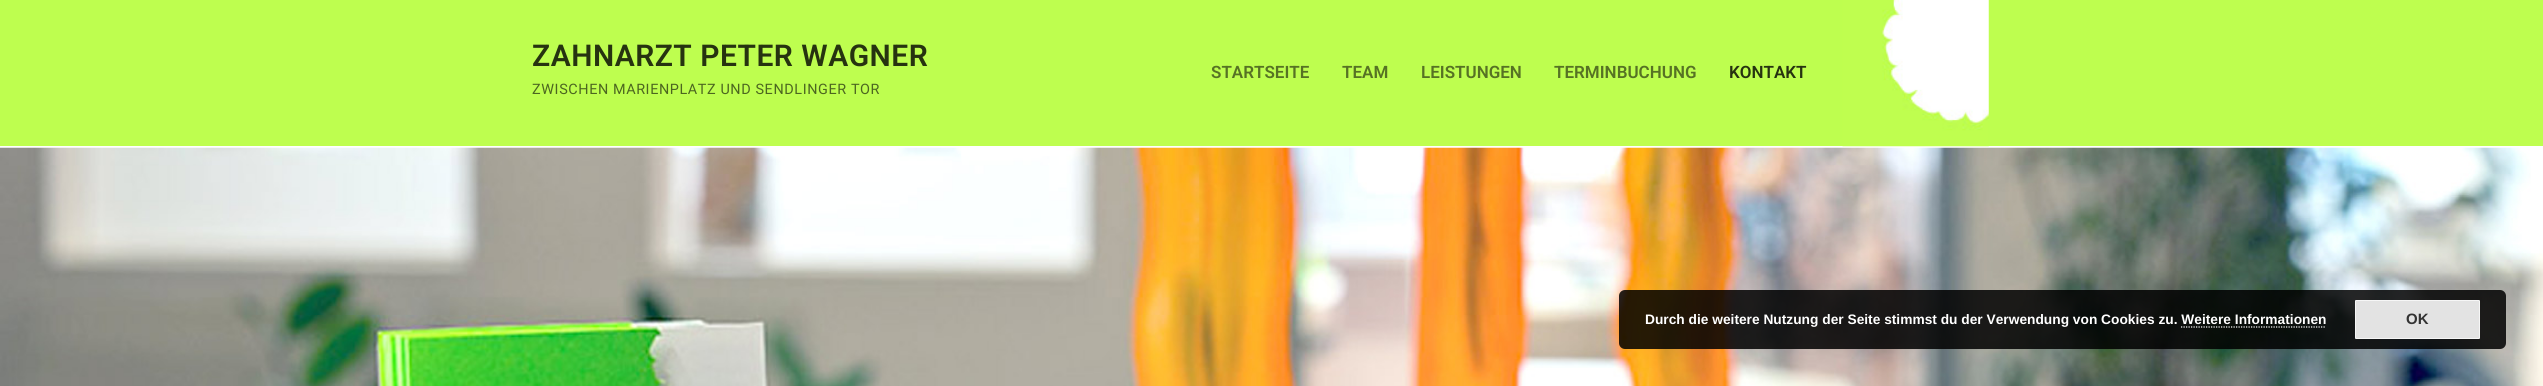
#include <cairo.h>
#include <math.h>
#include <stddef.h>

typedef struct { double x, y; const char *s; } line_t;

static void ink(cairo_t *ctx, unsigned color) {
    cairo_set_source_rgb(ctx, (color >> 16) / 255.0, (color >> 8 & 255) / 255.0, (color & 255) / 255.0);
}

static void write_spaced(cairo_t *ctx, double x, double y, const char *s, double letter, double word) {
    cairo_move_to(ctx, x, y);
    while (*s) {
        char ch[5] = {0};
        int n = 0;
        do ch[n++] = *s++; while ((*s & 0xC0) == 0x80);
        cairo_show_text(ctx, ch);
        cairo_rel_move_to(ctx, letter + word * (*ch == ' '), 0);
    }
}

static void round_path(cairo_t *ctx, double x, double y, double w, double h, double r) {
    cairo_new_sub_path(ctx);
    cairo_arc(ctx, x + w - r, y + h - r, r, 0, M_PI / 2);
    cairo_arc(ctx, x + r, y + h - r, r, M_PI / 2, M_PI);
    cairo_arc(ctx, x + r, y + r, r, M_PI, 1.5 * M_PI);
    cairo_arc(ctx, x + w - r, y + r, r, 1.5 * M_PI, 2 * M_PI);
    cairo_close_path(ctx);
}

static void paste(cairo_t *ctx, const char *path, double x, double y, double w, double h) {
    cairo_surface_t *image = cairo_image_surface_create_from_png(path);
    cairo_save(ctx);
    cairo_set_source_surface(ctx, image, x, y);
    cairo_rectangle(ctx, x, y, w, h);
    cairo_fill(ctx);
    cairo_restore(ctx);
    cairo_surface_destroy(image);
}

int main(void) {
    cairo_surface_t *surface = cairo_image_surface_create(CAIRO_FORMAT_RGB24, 2543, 386);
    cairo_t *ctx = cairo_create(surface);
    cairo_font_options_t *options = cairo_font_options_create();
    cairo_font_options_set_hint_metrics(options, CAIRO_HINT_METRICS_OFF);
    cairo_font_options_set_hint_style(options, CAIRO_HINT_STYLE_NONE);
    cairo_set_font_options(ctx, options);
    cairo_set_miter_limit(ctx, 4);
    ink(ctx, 0xFFFFFF);
    cairo_paint(ctx);
    ink(ctx, 0xBEFE4F);
    cairo_rectangle(ctx, 0, 0, 2543, 146);
    cairo_fill(ctx);
    cairo_select_font_face(ctx, "Roboto SemiBold", CAIRO_FONT_SLANT_NORMAL, CAIRO_FONT_WEIGHT_NORMAL);
    cairo_set_font_size(ctx, 30);
    ink(ctx, 0x263310);
    write_spaced(ctx, 532, 66, "ZAHNARZT PETER WAGNER", 0.5, 0);
    cairo_select_font_face(ctx, "Roboto", CAIRO_FONT_SLANT_NORMAL, CAIRO_FONT_WEIGHT_NORMAL);
    cairo_set_font_size(ctx, 14.4);
    ink(ctx, 0x4C6620);
    write_spaced(ctx, 532, 94, "ZWISCHEN MARIENPLATZ UND SENDLINGER TOR", 0.6, 0);
    cairo_select_font_face(ctx, "Roboto SemiBold", CAIRO_FONT_SLANT_NORMAL, CAIRO_FONT_WEIGHT_NORMAL);
    cairo_set_font_size(ctx, 17);
    ink(ctx, 0x567224);
    {
        static const line_t items[] = {
            {1211, 78, "STARTSEITE"},
            {1342, 78, "TEAM"},
            {1421, 78, "LEISTUNGEN"},
            {1554, 78, "TERMINBUCHUNG"},
        };
        for (size_t i = 0; i < sizeof items / sizeof *items; i++) {
            cairo_move_to(ctx, items[i].x, items[i].y);
            cairo_show_text(ctx, items[i].s);
        }
    }
    ink(ctx, 0x263310);
    cairo_move_to(ctx, 1729, 78);
    cairo_show_text(ctx, "KONTAKT");
    paste(ctx, "media/1.png", 1842, 0, 147, 147);
    paste(ctx, "media/2.png", 0, 147, 2543, 239);
    cairo_set_source_rgba(ctx, 0, 0, 0, 0.85);
    round_path(ctx, 1619, 290, 887, 59, 6);
    cairo_fill(ctx);
    cairo_select_font_face(ctx, "Liberation Sans", CAIRO_FONT_SLANT_NORMAL, CAIRO_FONT_WEIGHT_BOLD);
    cairo_set_font_size(ctx, 13.75);
    ink(ctx, 0xFFFFFF);
    cairo_move_to(ctx, 1645, 324);
    cairo_show_text(ctx, "Durch die weitere Nutzung der Seite stimmst du der Verwendung von Cookies zu. Weitere Informationen");
    ink(ctx, 0xE3E3E3);
    round_path(ctx, 2355.5, 300.5, 124, 38, 0.5);
    cairo_fill_preserve(ctx);
    ink(ctx, 0xF6F6F6);
    cairo_set_line_width(ctx, 1);
    cairo_stroke(ctx);
    cairo_set_font_size(ctx, 15);
    ink(ctx, 0x333333);
    cairo_move_to(ctx, 2406, 324);
    cairo_show_text(ctx, "OK");
    cairo_new_path(ctx);
    cairo_move_to(ctx, 2181, 327);
    cairo_line_to(ctx, 2326, 327);
    ink(ctx, 0xFFFFFF);
    cairo_set_line_width(ctx, 1.2);
    cairo_set_dash(ctx, (double[]){1.25, 1.25}, 2, 0);
    cairo_stroke(ctx);
    cairo_surface_write_to_png(surface, "image.png");
    cairo_font_options_destroy(options);
    cairo_destroy(ctx);
    cairo_surface_destroy(surface);
    return 0;
}
